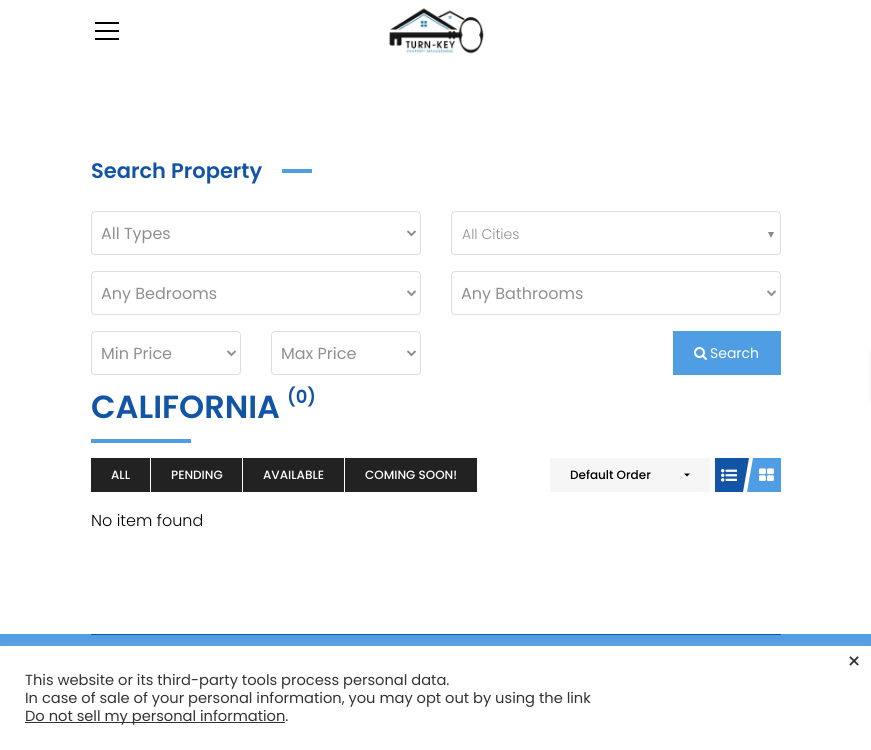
#include <cairo.h>
#include <math.h>
#include <stddef.h>

typedef struct { double x, y, w, h; unsigned color; } box_t;

static void ink(cairo_t *ctx, unsigned color) {
    cairo_set_source_rgb(ctx, (color >> 16) / 255.0, (color >> 8 & 255) / 255.0, (color & 255) / 255.0);
}

static void round_path(cairo_t *ctx, double x, double y, double w, double h, double r) {
    cairo_new_sub_path(ctx);
    cairo_arc(ctx, x + w - r, y + h - r, r, 0, M_PI / 2);
    cairo_arc(ctx, x + r, y + h - r, r, M_PI / 2, M_PI);
    cairo_arc(ctx, x + r, y + r, r, M_PI, 1.5 * M_PI);
    cairo_arc(ctx, x + w - r, y + r, r, 1.5 * M_PI, 2 * M_PI);
    cairo_close_path(ctx);
}

static void blur_box(cairo_t *ctx, double x, double y, double w, double h, double r, double blur, double alpha) {
    cairo_push_group_with_content(ctx, CAIRO_CONTENT_ALPHA);
    cairo_set_operator(ctx, CAIRO_OPERATOR_SOURCE);
    for (int i = 15; i >= -15 && fmin(w, h) + blur * i / 3 > 0; i -= 2) {
        double e = blur * i / 6;
        cairo_set_source_rgba(ctx, 0, 0, 0, alpha * erfc((i - 1) / 8.5) / 2);
        round_path(ctx, x - e, y - e, w + 2 * e, h + 2 * e, fmax(0, fmin(r + e + blur * .6, fmin(w, h) / 2 + e)));
        cairo_fill(ctx);
    }
    cairo_pattern_t *soft = cairo_pop_group(ctx);
    cairo_mask(ctx, soft);
    cairo_pattern_destroy(soft);
}

static void paste(cairo_t *ctx, const char *path, double x, double y, double w, double h) {
    cairo_surface_t *image = cairo_image_surface_create_from_png(path);
    cairo_save(ctx);
    cairo_set_source_surface(ctx, image, x, y);
    cairo_rectangle(ctx, x, y, w, h);
    cairo_fill(ctx);
    cairo_restore(ctx);
    cairo_surface_destroy(image);
}

int main(void) {
    cairo_surface_t *surface = cairo_image_surface_create(CAIRO_FORMAT_RGB24, 871, 750);
    cairo_t *ctx = cairo_create(surface);
    cairo_font_options_t *options = cairo_font_options_create();
    cairo_font_options_set_hint_metrics(options, CAIRO_HINT_METRICS_OFF);
    cairo_font_options_set_hint_style(options, CAIRO_HINT_STYLE_NONE);
    cairo_set_font_options(ctx, options);
    cairo_set_miter_limit(ctx, 4);
    ink(ctx, 0xFFFFFF);
    cairo_paint(ctx);
    {
        static const box_t items[] = {
            {95, 22, 24, 2, 0x000000},
            {95, 30, 24, 2, 0x000000},
            {95, 38, 24, 2, 0x000000},
        };
        for (size_t i = 0; i < sizeof items / sizeof *items; i++) {
            ink(ctx, items[i].color);
            cairo_rectangle(ctx, items[i].x, items[i].y, items[i].w, items[i].h);
            cairo_fill(ctx);
        }
    }
    paste(ctx, "media/1.png", 389, 8, 95, 46);
    cairo_select_font_face(ctx, "Poppins SemiBold", CAIRO_FONT_SLANT_NORMAL, CAIRO_FONT_WEIGHT_NORMAL);
    cairo_set_font_size(ctx, 21);
    ink(ctx, 0x1254A5);
    cairo_move_to(ctx, 91, 178);
    cairo_show_text(ctx, "Search Property");
    ink(ctx, 0x4F9EE3);
    cairo_rectangle(ctx, 282, 169, 30, 4);
    cairo_fill(ctx);
    round_path(ctx, 91.5, 211.5, 329, 43, 3.5);
    ink(ctx, 0xDEDEDE);
    cairo_set_line_width(ctx, 1);
    cairo_stroke(ctx);
    cairo_new_path(ctx);
    cairo_move_to(ctx, 407.5, 231);
    cairo_line_to(ctx, 411.5, 235);
    cairo_line_to(ctx, 415.5, 231);
    ink(ctx, 0x8F8F8F);
    cairo_set_line_width(ctx, 2);
    cairo_stroke(ctx);
    cairo_select_font_face(ctx, "Poppins", CAIRO_FONT_SLANT_NORMAL, CAIRO_FONT_WEIGHT_NORMAL);
    cairo_set_font_size(ctx, 16);
    cairo_move_to(ctx, 101, 239);
    cairo_show_text(ctx, "All Types");
    round_path(ctx, 451.5, 211.5, 329, 43, 3.5);
    ink(ctx, 0xDEDEDE);
    cairo_set_line_width(ctx, 1);
    cairo_stroke(ctx);
    cairo_select_font_face(ctx, "Poppins Light", CAIRO_FONT_SLANT_NORMAL, CAIRO_FONT_WEIGHT_NORMAL);
    cairo_set_font_size(ctx, 14);
    ink(ctx, 0x8F8F8F);
    cairo_move_to(ctx, 462, 239);
    cairo_show_text(ctx, "All Cities");
    ink(ctx, 0x888888);
    cairo_new_path(ctx);
    cairo_move_to(ctx, 768, 232);
    cairo_line_to(ctx, 774, 232);
    cairo_line_to(ctx, 771, 238);
    cairo_close_path(ctx);
    cairo_fill(ctx);
    round_path(ctx, 91.5, 271.5, 329, 43, 3.5);
    ink(ctx, 0xDEDEDE);
    cairo_stroke(ctx);
    cairo_new_path(ctx);
    cairo_move_to(ctx, 407.5, 291);
    cairo_line_to(ctx, 411.5, 295);
    cairo_line_to(ctx, 415.5, 291);
    ink(ctx, 0x8F8F8F);
    cairo_set_line_width(ctx, 2);
    cairo_stroke(ctx);
    cairo_select_font_face(ctx, "Poppins", CAIRO_FONT_SLANT_NORMAL, CAIRO_FONT_WEIGHT_NORMAL);
    cairo_set_font_size(ctx, 16);
    cairo_move_to(ctx, 101, 299);
    cairo_show_text(ctx, "Any Bedrooms");
    round_path(ctx, 451.5, 271.5, 329, 43, 3.5);
    ink(ctx, 0xDEDEDE);
    cairo_set_line_width(ctx, 1);
    cairo_stroke(ctx);
    cairo_new_path(ctx);
    cairo_move_to(ctx, 767.5, 291);
    cairo_line_to(ctx, 771.5, 295);
    cairo_line_to(ctx, 775.5, 291);
    ink(ctx, 0x8F8F8F);
    cairo_set_line_width(ctx, 2);
    cairo_stroke(ctx);
    cairo_move_to(ctx, 461, 299);
    cairo_show_text(ctx, "Any Bathrooms");
    round_path(ctx, 91.5, 331.5, 149, 43, 3.5);
    ink(ctx, 0xDEDEDE);
    cairo_set_line_width(ctx, 1);
    cairo_stroke(ctx);
    cairo_new_path(ctx);
    cairo_move_to(ctx, 227.5, 351);
    cairo_line_to(ctx, 231.5, 355);
    cairo_line_to(ctx, 235.5, 351);
    ink(ctx, 0x8F8F8F);
    cairo_set_line_width(ctx, 2);
    cairo_stroke(ctx);
    cairo_move_to(ctx, 101, 359);
    cairo_show_text(ctx, "Min Price");
    round_path(ctx, 271.5, 331.5, 149, 43, 3.5);
    ink(ctx, 0xDEDEDE);
    cairo_set_line_width(ctx, 1);
    cairo_stroke(ctx);
    cairo_new_path(ctx);
    cairo_move_to(ctx, 407.5, 351);
    cairo_line_to(ctx, 411.5, 355);
    cairo_line_to(ctx, 415.5, 351);
    ink(ctx, 0x8F8F8F);
    cairo_set_line_width(ctx, 2);
    cairo_stroke(ctx);
    cairo_move_to(ctx, 281, 359);
    cairo_show_text(ctx, "Max Price");
    ink(ctx, 0x4F9EE3);
    cairo_rectangle(ctx, 673, 331, 108, 44);
    cairo_fill(ctx);
    paste(ctx, "media/2.png", 694, 347, 13, 13);
    cairo_set_font_size(ctx, 14);
    ink(ctx, 0xFFFFFF);
    cairo_move_to(ctx, 710, 358);
    cairo_show_text(ctx, "Search");
    cairo_select_font_face(ctx, "Poppins SemiBold", CAIRO_FONT_SLANT_NORMAL, CAIRO_FONT_WEIGHT_NORMAL);
    cairo_set_font_size(ctx, 32);
    ink(ctx, 0x1254A5);
    cairo_move_to(ctx, 91, 418);
    cairo_show_text(ctx, "CALIFORNIA");
    cairo_set_font_size(ctx, 18);
    cairo_move_to(ctx, 287, 403);
    cairo_show_text(ctx, "(0)");
    ink(ctx, 0x4F9EE3);
    cairo_rectangle(ctx, 91, 439, 100, 4);
    cairo_fill(ctx);
    ink(ctx, 0x222222);
    cairo_rectangle(ctx, 91, 458, 59, 34);
    cairo_fill(ctx);
    cairo_select_font_face(ctx, "Poppins Medium", CAIRO_FONT_SLANT_NORMAL, CAIRO_FONT_WEIGHT_NORMAL);
    cairo_set_font_size(ctx, 12);
    ink(ctx, 0xFFFFFF);
    cairo_move_to(ctx, 111, 479);
    cairo_show_text(ctx, "ALL");
    ink(ctx, 0x222222);
    cairo_rectangle(ctx, 151, 458, 91, 34);
    cairo_fill(ctx);
    ink(ctx, 0xFFFFFF);
    cairo_move_to(ctx, 171, 479);
    cairo_show_text(ctx, "PENDING");
    ink(ctx, 0x222222);
    cairo_rectangle(ctx, 243, 458, 101, 34);
    cairo_fill(ctx);
    ink(ctx, 0xFFFFFF);
    cairo_move_to(ctx, 263, 479);
    cairo_show_text(ctx, "AVAILABLE");
    ink(ctx, 0x222222);
    cairo_rectangle(ctx, 345, 458, 132, 34);
    cairo_fill(ctx);
    ink(ctx, 0xFFFFFF);
    cairo_move_to(ctx, 365, 479);
    cairo_show_text(ctx, "COMING SOON!");
    ink(ctx, 0xF6F6F6);
    cairo_rectangle(ctx, 550, 458, 160, 34);
    cairo_fill(ctx);
    ink(ctx, 0x000000);
    cairo_move_to(ctx, 570, 479);
    cairo_show_text(ctx, "Default Order");
    cairo_new_path(ctx);
    cairo_move_to(ctx, 684, 473.5);
    cairo_line_to(ctx, 690, 473.5);
    cairo_line_to(ctx, 687, 476.5);
    cairo_close_path(ctx);
    cairo_fill(ctx);
    ink(ctx, 0x1254A5);
    cairo_rectangle(ctx, 715, 458, 28, 34);
    cairo_fill(ctx);
    paste(ctx, "media/3.png", 721, 469, 16, 13);
    cairo_new_path(ctx);
    cairo_move_to(ctx, 743, 458);
    cairo_line_to(ctx, 749, 458);
    cairo_line_to(ctx, 743, 492);
    cairo_close_path(ctx);
    cairo_fill(ctx);
    ink(ctx, 0x4F9EE3);
    cairo_rectangle(ctx, 753, 458, 28, 34);
    cairo_fill(ctx);
    cairo_new_path(ctx);
    cairo_move_to(ctx, 753, 492);
    cairo_line_to(ctx, 747, 492);
    cairo_line_to(ctx, 753, 458);
    cairo_close_path(ctx);
    cairo_fill(ctx);
    paste(ctx, "media/4.png", 759, 468, 15, 13);
    cairo_select_font_face(ctx, "Poppins Light", CAIRO_FONT_SLANT_NORMAL, CAIRO_FONT_WEIGHT_NORMAL);
    cairo_set_font_size(ctx, 16);
    ink(ctx, 0x000000);
    cairo_move_to(ctx, 91, 526);
    cairo_show_text(ctx, "No item found");
    ink(ctx, 0x4F9EE3);
    cairo_rectangle(ctx, 0, 634, 871, 12);
    cairo_fill(ctx);
    ink(ctx, 0x1254A5);
    cairo_rectangle(ctx, 91, 634, 690, 1);
    cairo_fill(ctx);
    ink(ctx, 0x777777);
    blur_box(ctx, 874, 353, 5, 46, 0, 2.5, 1);
    ink(ctx, 0xACABAB);
    blur_box(ctx, 0, 645, 871, 104, 0, 5, 0.3);
    ink(ctx, 0xFFFFFF);
    cairo_rectangle(ctx, 0, 646, 871, 104);
    cairo_fill(ctx);
    cairo_select_font_face(ctx, "Poppins", CAIRO_FONT_SLANT_NORMAL, CAIRO_FONT_WEIGHT_NORMAL);
    cairo_set_font_size(ctx, 22);
    ink(ctx, 0x333333);
    cairo_move_to(ctx, 847, 669);
    cairo_show_text(ctx, "×");
    cairo_set_font_size(ctx, 14.65);
    cairo_move_to(ctx, 25, 685);
    cairo_show_text(ctx, "This website or its third-party tools process personal data.");
    cairo_move_to(ctx, 25, 703);
    cairo_show_text(ctx, "In case of sale of your personal information, you may opt out by using the link");
    cairo_rectangle(ctx, 25, 722, 260, 1);
    cairo_fill(ctx);
    cairo_move_to(ctx, 25, 721);
    cairo_show_text(ctx, "Do not sell my personal information.");
    cairo_surface_write_to_png(surface, "image.png");
    cairo_font_options_destroy(options);
    cairo_destroy(ctx);
    cairo_surface_destroy(surface);
    return 0;
}
